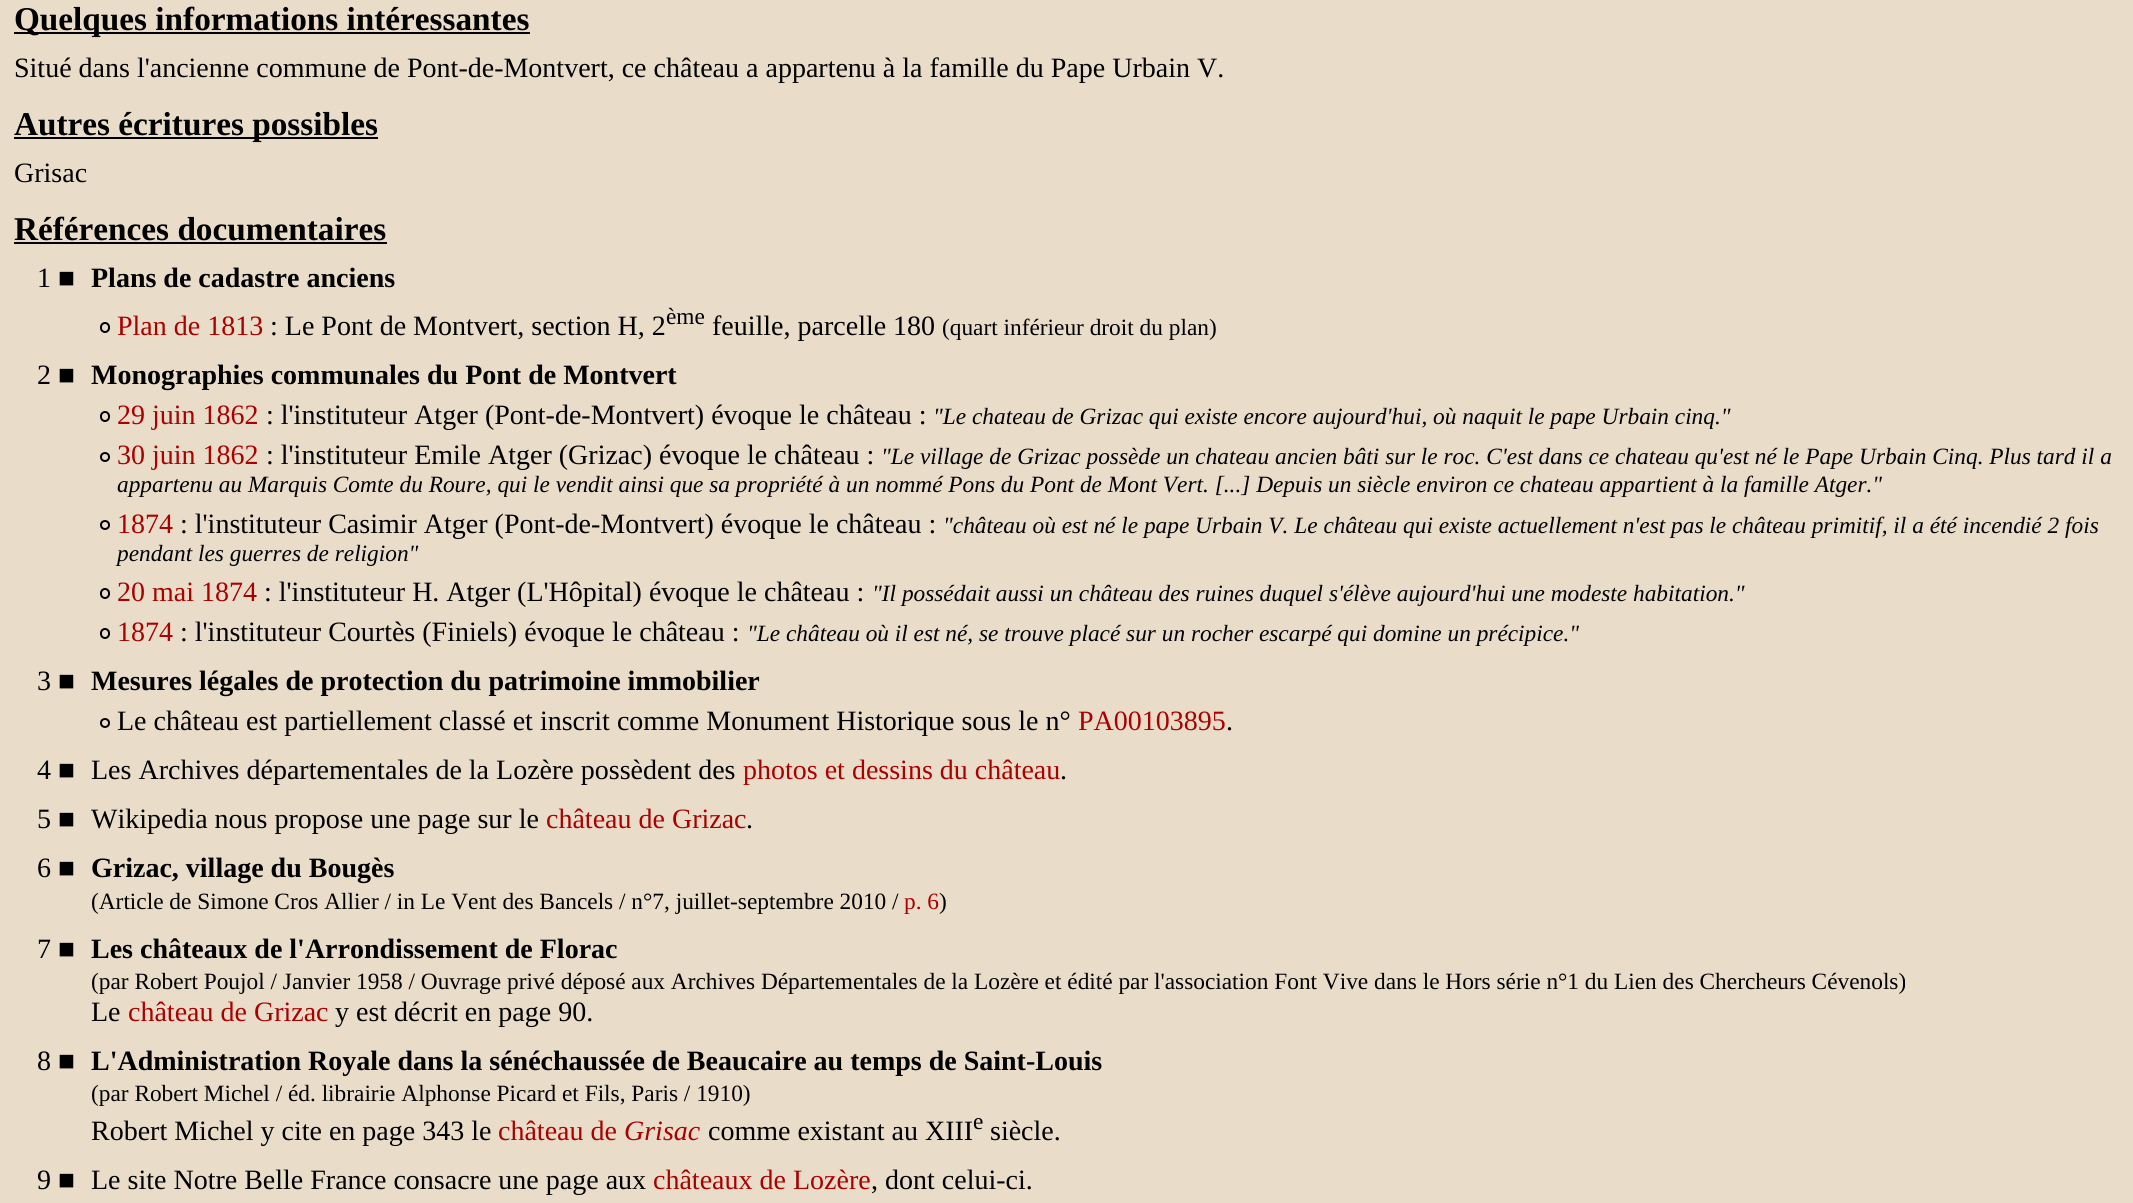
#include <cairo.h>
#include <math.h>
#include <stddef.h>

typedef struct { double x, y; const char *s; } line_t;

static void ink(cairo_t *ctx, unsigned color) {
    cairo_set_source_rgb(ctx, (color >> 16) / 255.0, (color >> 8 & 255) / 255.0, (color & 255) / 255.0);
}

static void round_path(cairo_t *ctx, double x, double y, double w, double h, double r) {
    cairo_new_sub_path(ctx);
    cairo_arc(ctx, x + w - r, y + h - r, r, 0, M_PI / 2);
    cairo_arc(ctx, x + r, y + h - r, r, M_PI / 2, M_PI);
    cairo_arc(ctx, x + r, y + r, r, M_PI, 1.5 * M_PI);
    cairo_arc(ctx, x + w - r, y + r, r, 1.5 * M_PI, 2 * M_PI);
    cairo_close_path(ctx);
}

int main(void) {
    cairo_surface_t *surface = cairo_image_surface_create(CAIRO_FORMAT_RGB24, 2133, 1203);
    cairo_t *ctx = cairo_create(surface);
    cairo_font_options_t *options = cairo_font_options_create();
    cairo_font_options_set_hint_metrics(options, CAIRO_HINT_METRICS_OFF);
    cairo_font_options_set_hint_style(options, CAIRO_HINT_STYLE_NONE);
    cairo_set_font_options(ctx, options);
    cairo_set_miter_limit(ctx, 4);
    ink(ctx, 0xE9DDCA);
    cairo_paint(ctx);
    ink(ctx, 0x000000);
    cairo_rectangle(ctx, 14, 32, 516, 2);
    cairo_fill(ctx);
    cairo_select_font_face(ctx, "Liberation Serif", CAIRO_FONT_SLANT_NORMAL, CAIRO_FONT_WEIGHT_BOLD);
    cairo_set_font_size(ctx, 33.25);
    cairo_move_to(ctx, 14, 30);
    cairo_show_text(ctx, "Quelques informations intéressantes");
    cairo_select_font_face(ctx, "Liberation Serif", CAIRO_FONT_SLANT_NORMAL, CAIRO_FONT_WEIGHT_NORMAL);
    cairo_set_font_size(ctx, 28);
    cairo_move_to(ctx, 14, 77);
    cairo_show_text(ctx, "Situé dans l'ancienne commune de Pont-de-Montvert, ce château a appartenu à la famille du Pape Urbain V.");
    cairo_rectangle(ctx, 14, 137, 364, 2);
    cairo_fill(ctx);
    cairo_select_font_face(ctx, "Liberation Serif", CAIRO_FONT_SLANT_NORMAL, CAIRO_FONT_WEIGHT_BOLD);
    cairo_set_font_size(ctx, 33.25);
    cairo_move_to(ctx, 14, 135);
    cairo_show_text(ctx, "Autres écritures possibles");
    cairo_select_font_face(ctx, "Liberation Serif", CAIRO_FONT_SLANT_NORMAL, CAIRO_FONT_WEIGHT_NORMAL);
    cairo_set_font_size(ctx, 28);
    cairo_move_to(ctx, 14, 182);
    cairo_show_text(ctx, "Grisac");
    cairo_select_font_face(ctx, "Liberation Serif", CAIRO_FONT_SLANT_NORMAL, CAIRO_FONT_WEIGHT_BOLD);
    cairo_set_font_size(ctx, 33.25);
    cairo_move_to(ctx, 14, 240);
    cairo_show_text(ctx, "Références documentaires");
    cairo_rectangle(ctx, 14, 242, 373, 2);
    cairo_fill(ctx);
    cairo_select_font_face(ctx, "Liberation Serif", CAIRO_FONT_SLANT_NORMAL, CAIRO_FONT_WEIGHT_NORMAL);
    cairo_set_font_size(ctx, 28);
    cairo_move_to(ctx, 37, 287);
    cairo_show_text(ctx, "1 ■");
    cairo_select_font_face(ctx, "Liberation Serif", CAIRO_FONT_SLANT_NORMAL, CAIRO_FONT_WEIGHT_BOLD);
    cairo_move_to(ctx, 91, 287);
    cairo_show_text(ctx, "Plans de cadastre anciens");
    round_path(ctx, 101, 323, 8, 9, 4);
    cairo_stroke(ctx);
    cairo_select_font_face(ctx, "Liberation Serif", CAIRO_FONT_SLANT_NORMAL, CAIRO_FONT_WEIGHT_NORMAL);
    ink(ctx, 0xAA0000);
    cairo_move_to(ctx, 117, 335);
    cairo_show_text(ctx, "Plan de 1813");
    ink(ctx, 0x000000);
    cairo_move_to(ctx, 270, 335);
    cairo_show_text(ctx, ": Le Pont de Montvert, section H, 2");
    cairo_set_font_size(ctx, 23.33);
    cairo_move_to(ctx, 666, 324);
    cairo_show_text(ctx, "ème");
    cairo_set_font_size(ctx, 28);
    cairo_move_to(ctx, 712, 335);
    cairo_show_text(ctx, "feuille, parcelle 180");
    cairo_set_font_size(ctx, 23.33);
    cairo_move_to(ctx, 942, 335);
    cairo_show_text(ctx, "(quart inférieur droit du plan)");
    cairo_set_font_size(ctx, 28);
    cairo_move_to(ctx, 37, 384);
    cairo_show_text(ctx, "2 ■");
    cairo_select_font_face(ctx, "Liberation Serif", CAIRO_FONT_SLANT_NORMAL, CAIRO_FONT_WEIGHT_BOLD);
    cairo_move_to(ctx, 91, 384);
    cairo_show_text(ctx, "Monographies communales du Pont de Montvert");
    round_path(ctx, 101, 412, 8, 9, 4);
    cairo_stroke(ctx);
    cairo_select_font_face(ctx, "Liberation Serif", CAIRO_FONT_SLANT_NORMAL, CAIRO_FONT_WEIGHT_NORMAL);
    ink(ctx, 0xAA0000);
    cairo_move_to(ctx, 117, 424);
    cairo_show_text(ctx, "29 juin 1862");
    ink(ctx, 0x000000);
    cairo_move_to(ctx, 266, 424);
    cairo_show_text(ctx, ": l'instituteur Atger (Pont-de-Montvert) évoque le château :");
    cairo_select_font_face(ctx, "Liberation Serif", CAIRO_FONT_SLANT_ITALIC, CAIRO_FONT_WEIGHT_NORMAL);
    cairo_set_font_size(ctx, 23.33);
    cairo_move_to(ctx, 933, 424);
    cairo_show_text(ctx, "\"Le chateau de Grizac qui existe encore aujourd'hui, où naquit le pape Urbain cinq.\"");
    cairo_new_path(ctx);
    cairo_arc(ctx, 105, 457, 4, 0, 2 * M_PI);
    cairo_stroke(ctx);
    cairo_select_font_face(ctx, "Liberation Serif", CAIRO_FONT_SLANT_NORMAL, CAIRO_FONT_WEIGHT_NORMAL);
    cairo_set_font_size(ctx, 28);
    ink(ctx, 0xAA0000);
    cairo_move_to(ctx, 117, 464);
    cairo_show_text(ctx, "30 juin 1862");
    ink(ctx, 0x000000);
    cairo_move_to(ctx, 266, 464);
    cairo_show_text(ctx, ": l'instituteur Emile Atger (Grizac) évoque le château :");
    cairo_select_font_face(ctx, "Liberation Serif", CAIRO_FONT_SLANT_ITALIC, CAIRO_FONT_WEIGHT_NORMAL);
    cairo_set_font_size(ctx, 23.33);
    cairo_move_to(ctx, 881, 464);
    cairo_show_text(ctx, "\"Le village de Grizac possède un chateau ancien bâti sur le roc. C'est dans ce chateau qu'est né le Pape Urbain Cinq. Plus tard il a");
    cairo_move_to(ctx, 117, 492);
    cairo_show_text(ctx, "appartenu au Marquis Comte du Roure, qui le vendit ainsi que sa propriété à un nommé Pons du Pont de Mont Vert. [...] Depuis un siècle environ ce chateau appartient à la famille Atger.\"");
    cairo_new_path(ctx);
    cairo_arc(ctx, 105, 525, 4, 0, 2 * M_PI);
    cairo_stroke(ctx);
    cairo_select_font_face(ctx, "Liberation Serif", CAIRO_FONT_SLANT_NORMAL, CAIRO_FONT_WEIGHT_NORMAL);
    cairo_set_font_size(ctx, 28);
    ink(ctx, 0xAA0000);
    cairo_move_to(ctx, 117, 533);
    cairo_show_text(ctx, "1874");
    ink(ctx, 0x000000);
    cairo_move_to(ctx, 180, 533);
    cairo_show_text(ctx, ": l'instituteur Casimir Atger (Pont-de-Montvert) évoque le château :");
    cairo_select_font_face(ctx, "Liberation Serif", CAIRO_FONT_SLANT_ITALIC, CAIRO_FONT_WEIGHT_NORMAL);
    cairo_set_font_size(ctx, 23.33);
    cairo_move_to(ctx, 943, 533);
    cairo_show_text(ctx, "\"château où est né le pape Urbain V. Le château qui existe actuellement n'est pas le château primitif, il a été incendié 2 fois");
    cairo_move_to(ctx, 117, 561);
    cairo_show_text(ctx, "pendant les guerres de religion\"");
    round_path(ctx, 101, 589, 8, 9, 4);
    cairo_stroke(ctx);
    cairo_select_font_face(ctx, "Liberation Serif", CAIRO_FONT_SLANT_NORMAL, CAIRO_FONT_WEIGHT_NORMAL);
    cairo_set_font_size(ctx, 28);
    ink(ctx, 0xAA0000);
    cairo_move_to(ctx, 117, 601);
    cairo_show_text(ctx, "20 mai 1874");
    ink(ctx, 0x000000);
    cairo_move_to(ctx, 264, 601);
    cairo_show_text(ctx, ": l'instituteur H. Atger (L'Hôpital) évoque le château :");
    cairo_select_font_face(ctx, "Liberation Serif", CAIRO_FONT_SLANT_ITALIC, CAIRO_FONT_WEIGHT_NORMAL);
    cairo_set_font_size(ctx, 23.33);
    cairo_move_to(ctx, 872, 601);
    cairo_show_text(ctx, "\"Il possédait aussi un château des ruines duquel s'élève aujourd'hui une modeste habitation.\"");
    round_path(ctx, 101, 629, 8, 9, 4);
    cairo_stroke(ctx);
    cairo_select_font_face(ctx, "Liberation Serif", CAIRO_FONT_SLANT_NORMAL, CAIRO_FONT_WEIGHT_NORMAL);
    cairo_set_font_size(ctx, 28);
    ink(ctx, 0xAA0000);
    cairo_move_to(ctx, 117, 641);
    cairo_show_text(ctx, "1874");
    ink(ctx, 0x000000);
    cairo_move_to(ctx, 180, 641);
    cairo_show_text(ctx, ": l'instituteur Courtès (Finiels) évoque le château :");
    cairo_select_font_face(ctx, "Liberation Serif", CAIRO_FONT_SLANT_ITALIC, CAIRO_FONT_WEIGHT_NORMAL);
    cairo_set_font_size(ctx, 23.33);
    cairo_move_to(ctx, 747, 641);
    cairo_show_text(ctx, "\"Le château où il est né, se trouve placé sur un rocher escarpé qui domine un précipice.\"");
    cairo_select_font_face(ctx, "Liberation Serif", CAIRO_FONT_SLANT_NORMAL, CAIRO_FONT_WEIGHT_NORMAL);
    cairo_set_font_size(ctx, 28);
    cairo_move_to(ctx, 37, 690);
    cairo_show_text(ctx, "3 ■");
    cairo_select_font_face(ctx, "Liberation Serif", CAIRO_FONT_SLANT_NORMAL, CAIRO_FONT_WEIGHT_BOLD);
    cairo_move_to(ctx, 91, 690);
    cairo_show_text(ctx, "Mesures légales de protection du patrimoine immobilier");
    cairo_new_path(ctx);
    cairo_arc(ctx, 105, 723, 4, 0, 2 * M_PI);
    cairo_stroke(ctx);
    cairo_select_font_face(ctx, "Liberation Serif", CAIRO_FONT_SLANT_NORMAL, CAIRO_FONT_WEIGHT_NORMAL);
    cairo_move_to(ctx, 117, 730);
    cairo_show_text(ctx, "Le château est partiellement classé et inscrit comme Monument Historique sous le n°");
    ink(ctx, 0xAA0000);
    cairo_move_to(ctx, 1078, 730);
    cairo_show_text(ctx, "PA00103895");
    ink(ctx, 0x000000);
    {
        static const line_t items[] = {
            {1226, 730, "."},
            {37, 779, "4 ■"},
            {91, 779, "Les Archives départementales de la Lozère possèdent des"},
        };
        for (size_t i = 0; i < sizeof items / sizeof *items; i++) {
            cairo_move_to(ctx, items[i].x, items[i].y);
            cairo_show_text(ctx, items[i].s);
        }
    }
    ink(ctx, 0xAA0000);
    cairo_move_to(ctx, 743, 779);
    cairo_show_text(ctx, "photos et dessins du château");
    ink(ctx, 0x000000);
    {
        static const line_t items[] = {
            {1060, 779, "."},
            {37, 828, "5 ■"},
            {91, 828, "Wikipedia nous propose une page sur le"},
        };
        for (size_t i = 0; i < sizeof items / sizeof *items; i++) {
            cairo_move_to(ctx, items[i].x, items[i].y);
            cairo_show_text(ctx, items[i].s);
        }
    }
    ink(ctx, 0xAA0000);
    cairo_move_to(ctx, 546, 828);
    cairo_show_text(ctx, "château de Grizac");
    ink(ctx, 0x000000);
    cairo_move_to(ctx, 746, 828);
    cairo_show_text(ctx, ".");
    cairo_move_to(ctx, 37, 877);
    cairo_show_text(ctx, "6 ■");
    cairo_select_font_face(ctx, "Liberation Serif", CAIRO_FONT_SLANT_NORMAL, CAIRO_FONT_WEIGHT_BOLD);
    cairo_move_to(ctx, 91, 877);
    cairo_show_text(ctx, "Grizac, village du Bougès");
    cairo_select_font_face(ctx, "Liberation Serif", CAIRO_FONT_SLANT_NORMAL, CAIRO_FONT_WEIGHT_NORMAL);
    cairo_set_font_size(ctx, 23.33);
    cairo_move_to(ctx, 91, 909);
    cairo_show_text(ctx, "(Article de Simone Cros Allier / in Le Vent des Bancels / n°7, juillet-septembre 2010 /");
    ink(ctx, 0xAA0000);
    cairo_move_to(ctx, 904, 909);
    cairo_show_text(ctx, "p. 6");
    ink(ctx, 0x000000);
    cairo_move_to(ctx, 939, 909);
    cairo_show_text(ctx, ")");
    cairo_set_font_size(ctx, 28);
    cairo_move_to(ctx, 37, 958);
    cairo_show_text(ctx, "7 ■");
    cairo_select_font_face(ctx, "Liberation Serif", CAIRO_FONT_SLANT_NORMAL, CAIRO_FONT_WEIGHT_BOLD);
    cairo_move_to(ctx, 91, 958);
    cairo_show_text(ctx, "Les châteaux de l'Arrondissement de Florac");
    cairo_select_font_face(ctx, "Liberation Serif", CAIRO_FONT_SLANT_NORMAL, CAIRO_FONT_WEIGHT_NORMAL);
    cairo_set_font_size(ctx, 23.33);
    cairo_move_to(ctx, 91, 989);
    cairo_show_text(ctx, "(par Robert Poujol / Janvier 1958 / Ouvrage privé déposé aux Archives Départementales de la Lozère et édité par l'association Font Vive dans le Hors série n°1 du Lien des Chercheurs Cévenols)");
    cairo_set_font_size(ctx, 28);
    cairo_move_to(ctx, 91, 1021);
    cairo_show_text(ctx, "Le");
    ink(ctx, 0xAA0000);
    cairo_move_to(ctx, 128, 1021);
    cairo_show_text(ctx, "château de Grizac");
    ink(ctx, 0x000000);
    cairo_move_to(ctx, 335, 1021);
    cairo_show_text(ctx, "y est décrit en page 90.");
    cairo_move_to(ctx, 37, 1070);
    cairo_show_text(ctx, "8 ■");
    cairo_select_font_face(ctx, "Liberation Serif", CAIRO_FONT_SLANT_NORMAL, CAIRO_FONT_WEIGHT_BOLD);
    cairo_move_to(ctx, 91, 1070);
    cairo_show_text(ctx, "L'Administration Royale dans la sénéchaussée de Beaucaire au temps de Saint-Louis");
    cairo_select_font_face(ctx, "Liberation Serif", CAIRO_FONT_SLANT_NORMAL, CAIRO_FONT_WEIGHT_NORMAL);
    cairo_set_font_size(ctx, 23.33);
    cairo_move_to(ctx, 91, 1101);
    cairo_show_text(ctx, "(par Robert Michel / éd. librairie Alphonse Picard et Fils, Paris / 1910)");
    cairo_set_font_size(ctx, 28);
    cairo_move_to(ctx, 91, 1140);
    cairo_show_text(ctx, "Robert Michel y cite en page 343 le");
    ink(ctx, 0xAA0000);
    cairo_move_to(ctx, 498, 1140);
    cairo_show_text(ctx, "château de");
    cairo_select_font_face(ctx, "Liberation Serif", CAIRO_FONT_SLANT_ITALIC, CAIRO_FONT_WEIGHT_NORMAL);
    cairo_move_to(ctx, 624, 1140);
    cairo_show_text(ctx, "Grisac");
    cairo_select_font_face(ctx, "Liberation Serif", CAIRO_FONT_SLANT_NORMAL, CAIRO_FONT_WEIGHT_NORMAL);
    ink(ctx, 0x000000);
    cairo_move_to(ctx, 708, 1140);
    cairo_show_text(ctx, "comme existant au XIII");
    cairo_set_font_size(ctx, 23.33);
    cairo_move_to(ctx, 973, 1129);
    cairo_show_text(ctx, "e");
    cairo_set_font_size(ctx, 28);
    {
        static const line_t items[] = {
            {990, 1140, "siècle."},
            {37, 1189, "9 ■"},
            {91, 1189, "Le site Notre Belle France consacre une page aux"},
        };
        for (size_t i = 0; i < sizeof items / sizeof *items; i++) {
            cairo_move_to(ctx, items[i].x, items[i].y);
            cairo_show_text(ctx, items[i].s);
        }
    }
    ink(ctx, 0xAA0000);
    cairo_move_to(ctx, 653, 1189);
    cairo_show_text(ctx, "châteaux de Lozère");
    ink(ctx, 0x000000);
    cairo_move_to(ctx, 871, 1189);
    cairo_show_text(ctx, ", dont celui-ci.");
    cairo_surface_write_to_png(surface, "image.png");
    cairo_font_options_destroy(options);
    cairo_destroy(ctx);
    cairo_surface_destroy(surface);
    return 0;
}
